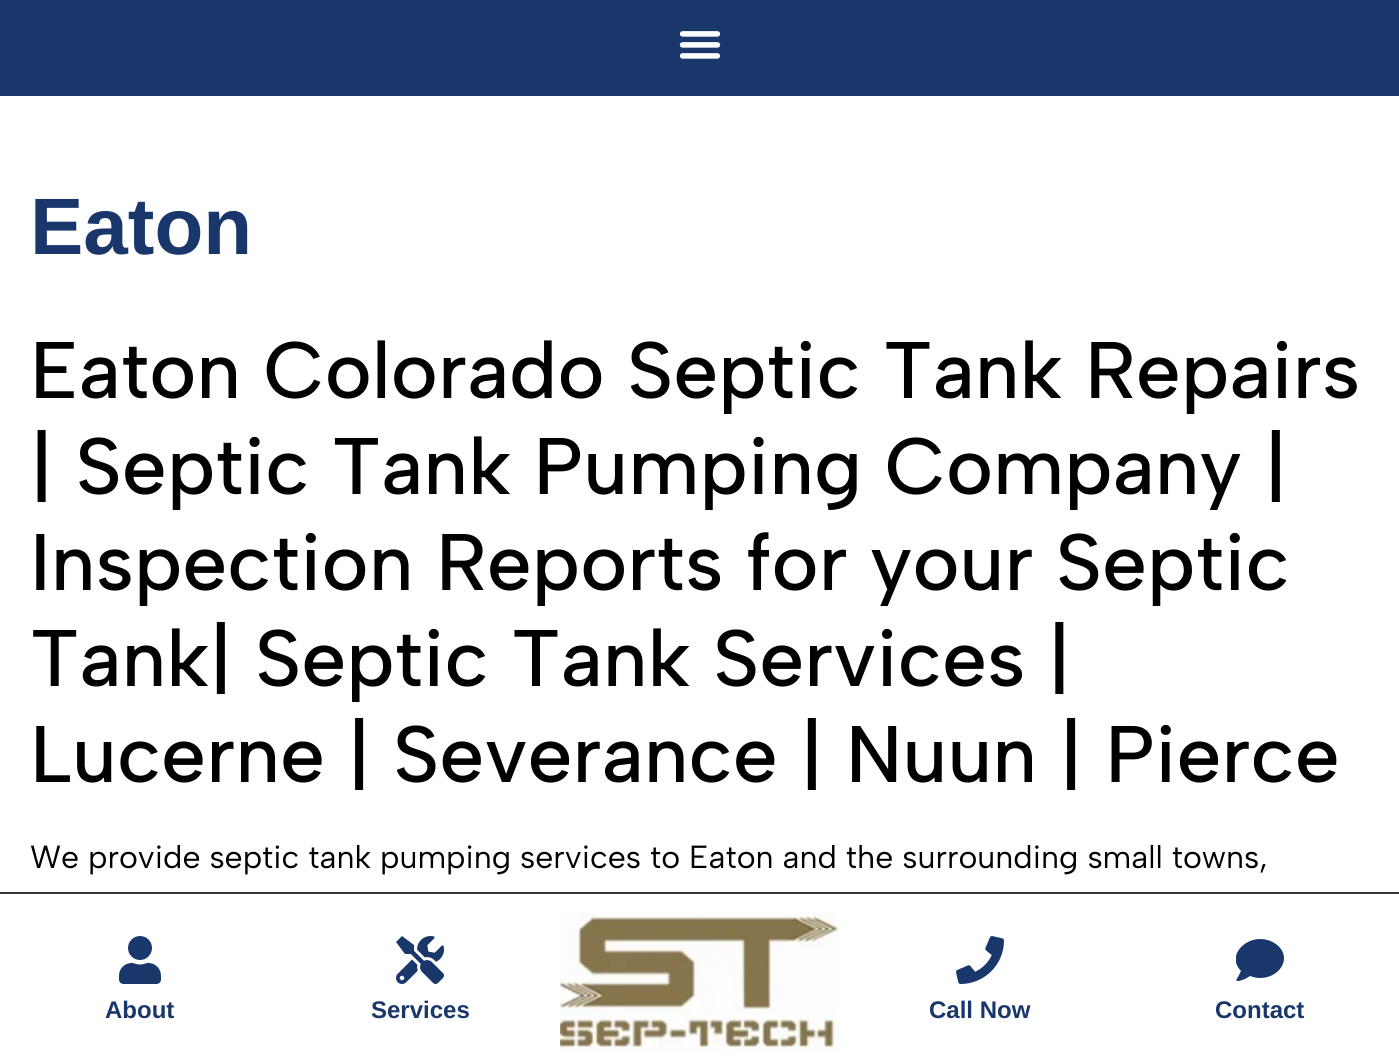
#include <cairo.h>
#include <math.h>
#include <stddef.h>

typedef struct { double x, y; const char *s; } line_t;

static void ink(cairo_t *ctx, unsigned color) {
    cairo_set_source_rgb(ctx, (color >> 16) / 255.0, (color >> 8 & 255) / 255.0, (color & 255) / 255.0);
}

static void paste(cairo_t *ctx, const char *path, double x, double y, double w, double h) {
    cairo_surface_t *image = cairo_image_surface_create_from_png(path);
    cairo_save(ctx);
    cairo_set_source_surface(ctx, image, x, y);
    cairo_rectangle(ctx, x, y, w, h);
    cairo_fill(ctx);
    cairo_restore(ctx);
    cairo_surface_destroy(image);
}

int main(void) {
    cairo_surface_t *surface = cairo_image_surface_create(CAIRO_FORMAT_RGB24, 1399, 1064);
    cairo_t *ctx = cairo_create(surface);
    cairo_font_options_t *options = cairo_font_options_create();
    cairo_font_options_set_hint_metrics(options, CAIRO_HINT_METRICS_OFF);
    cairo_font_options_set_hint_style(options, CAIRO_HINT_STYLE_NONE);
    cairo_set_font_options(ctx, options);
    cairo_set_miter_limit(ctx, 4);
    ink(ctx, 0xFFFFFF);
    cairo_paint(ctx);
    ink(ctx, 0x1A376C);
    cairo_rectangle(ctx, 0, 0, 1399, 96);
    cairo_fill(ctx);
    paste(ctx, "media/1.png", 679, 31, 42, 28);
    cairo_select_font_face(ctx, "Liberation Sans", CAIRO_FONT_SLANT_NORMAL, CAIRO_FONT_WEIGHT_BOLD);
    cairo_set_font_size(ctx, 80);
    cairo_move_to(ctx, 30, 254);
    cairo_show_text(ctx, "Eaton");
    cairo_select_font_face(ctx, "Albert Sans Medium", CAIRO_FONT_SLANT_NORMAL, CAIRO_FONT_WEIGHT_NORMAL);
    ink(ctx, 0x000000);
    {
        static const line_t items[] = {
            {30, 398, "Eaton Colorado Septic Tank Repairs"},
            {30, 494, "| Septic Tank Pumping Company |"},
            {30, 590, "Inspection Reports for your Septic"},
            {30, 686, "Tank| Septic Tank Services |"},
            {30, 782, "Lucerne | Severance | Nuun | Pierce"},
        };
        for (size_t i = 0; i < sizeof items / sizeof *items; i++) {
            cairo_move_to(ctx, items[i].x, items[i].y);
            cairo_show_text(ctx, items[i].s);
        }
    }
    cairo_select_font_face(ctx, "Albert Sans", CAIRO_FONT_SLANT_NORMAL, CAIRO_FONT_WEIGHT_NORMAL);
    cairo_set_font_size(ctx, 32);
    cairo_move_to(ctx, 30, 868);
    cairo_show_text(ctx, "We provide septic tank pumping services to Eaton and the surrounding small towns,");
    ink(ctx, 0x333333);
    cairo_rectangle(ctx, 0, 892, 1399, 2);
    cairo_fill(ctx);
    paste(ctx, "media/2.png", 119, 936, 42, 48);
    cairo_select_font_face(ctx, "Liberation Sans", CAIRO_FONT_SLANT_NORMAL, CAIRO_FONT_WEIGHT_BOLD);
    cairo_set_font_size(ctx, 24);
    ink(ctx, 0x1A376C);
    cairo_move_to(ctx, 105, 1018);
    cairo_show_text(ctx, "About");
    paste(ctx, "media/3.png", 396, 936, 48, 48);
    cairo_move_to(ctx, 371, 1018);
    cairo_show_text(ctx, "Services");
    paste(ctx, "media/4.png", 560, 911, 280, 142);
    paste(ctx, "media/5.png", 956, 936, 48, 48);
    cairo_move_to(ctx, 929, 1018);
    cairo_show_text(ctx, "Call Now");
    cairo_save(ctx);
    cairo_rectangle(ctx, 1236, 936, 48, 48);
    cairo_clip(ctx);
    cairo_new_path(ctx);
    cairo_move_to(ctx, 1260, 939);
    cairo_curve_to(ctx, 1243, 939, 1227, 957, 1241, 971);
    cairo_line_to(ctx, 1238, 977);
    cairo_curve_to(ctx, 1237, 979, 1234, 981, 1239, 981);
    cairo_line_to(ctx, 1245, 979);
    cairo_line_to(ctx, 1250, 976);
    cairo_curve_to(ctx, 1253, 977, 1256, 978, 1260, 978);
    cairo_curve_to(ctx, 1273, 978, 1284, 969, 1284, 958);
    cairo_curve_to(ctx, 1284, 948, 1273, 939, 1260, 939);
    cairo_close_path(ctx);
    cairo_fill(ctx);
    cairo_restore(ctx);
    cairo_move_to(ctx, 1215, 1018);
    cairo_show_text(ctx, "Contact");
    cairo_surface_write_to_png(surface, "image.png");
    cairo_font_options_destroy(options);
    cairo_destroy(ctx);
    cairo_surface_destroy(surface);
    return 0;
}
